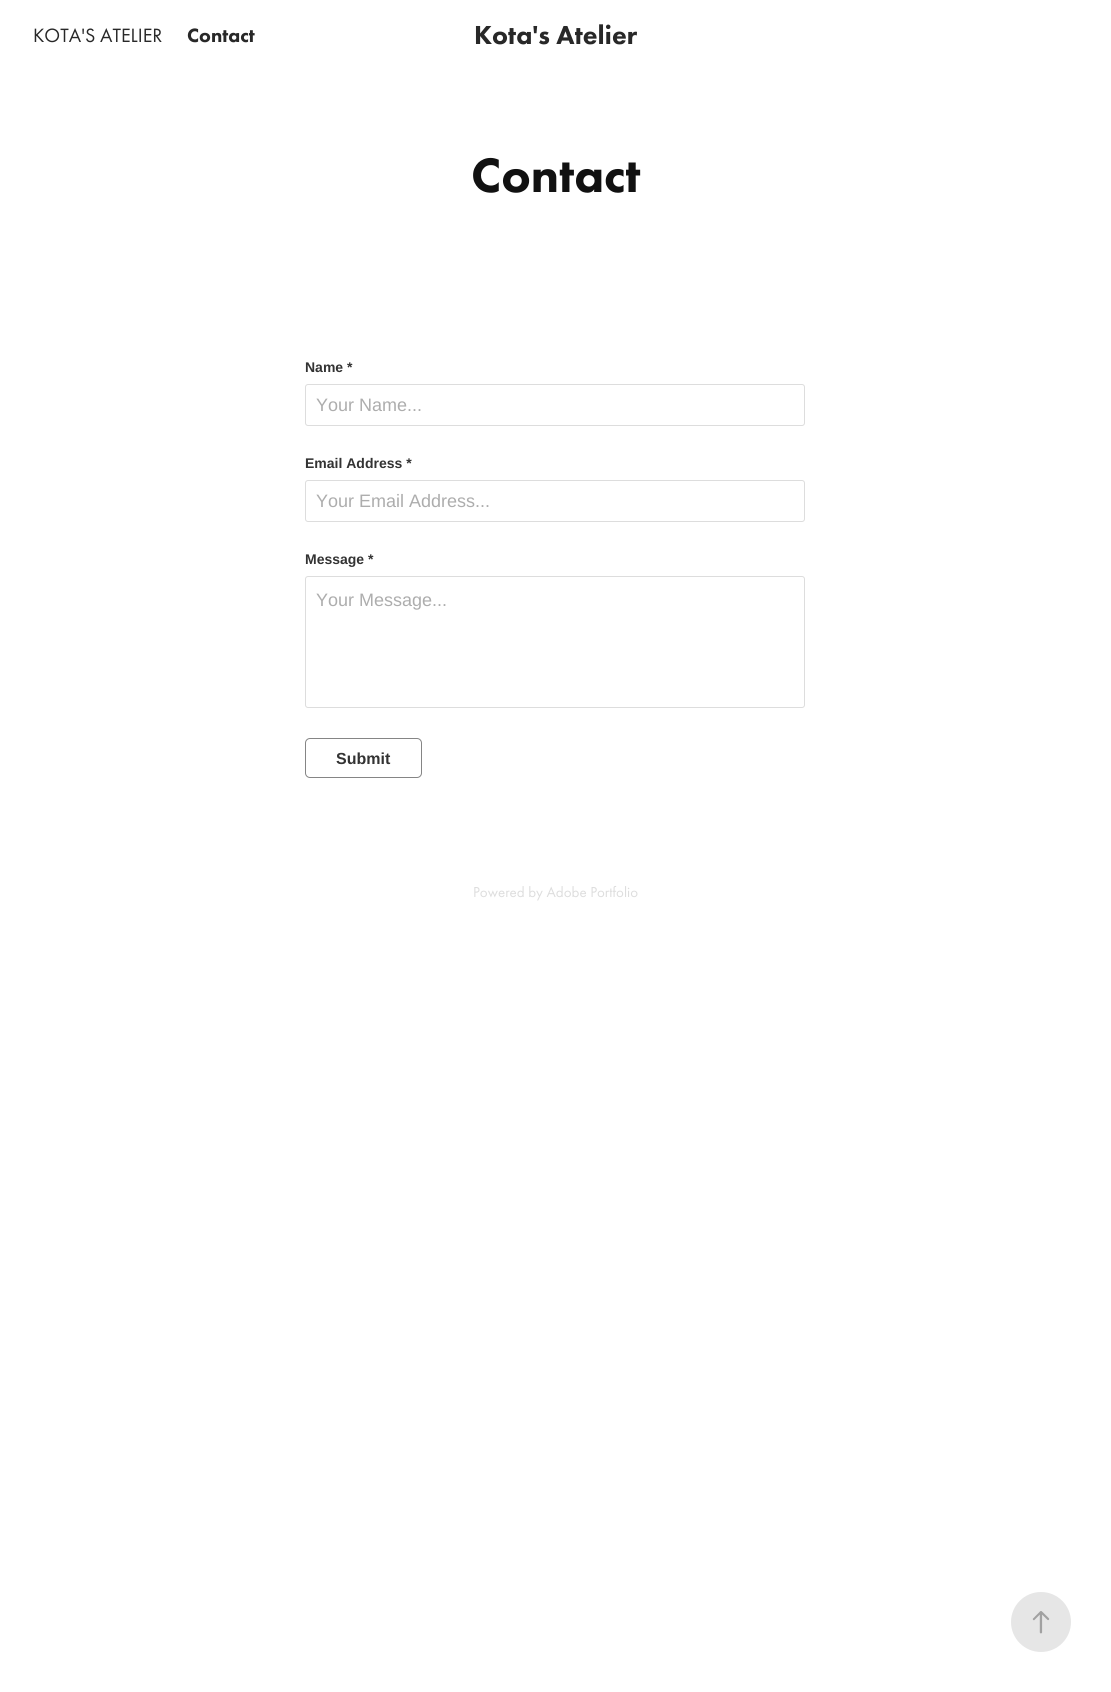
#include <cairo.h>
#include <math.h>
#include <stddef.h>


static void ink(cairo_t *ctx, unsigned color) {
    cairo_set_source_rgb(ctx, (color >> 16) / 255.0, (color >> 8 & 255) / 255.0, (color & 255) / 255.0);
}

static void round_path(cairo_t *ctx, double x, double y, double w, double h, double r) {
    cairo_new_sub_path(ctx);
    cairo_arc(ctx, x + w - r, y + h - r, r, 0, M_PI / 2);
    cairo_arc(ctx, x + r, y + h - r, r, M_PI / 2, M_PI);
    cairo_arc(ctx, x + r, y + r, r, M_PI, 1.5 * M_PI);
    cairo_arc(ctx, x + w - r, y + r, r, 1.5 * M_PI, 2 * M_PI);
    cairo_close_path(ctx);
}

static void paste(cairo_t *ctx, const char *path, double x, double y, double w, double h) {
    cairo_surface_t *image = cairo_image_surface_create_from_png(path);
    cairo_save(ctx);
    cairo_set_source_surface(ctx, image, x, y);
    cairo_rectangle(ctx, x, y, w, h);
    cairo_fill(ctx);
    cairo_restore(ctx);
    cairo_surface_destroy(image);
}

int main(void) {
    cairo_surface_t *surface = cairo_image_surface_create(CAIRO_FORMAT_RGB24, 1111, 1692);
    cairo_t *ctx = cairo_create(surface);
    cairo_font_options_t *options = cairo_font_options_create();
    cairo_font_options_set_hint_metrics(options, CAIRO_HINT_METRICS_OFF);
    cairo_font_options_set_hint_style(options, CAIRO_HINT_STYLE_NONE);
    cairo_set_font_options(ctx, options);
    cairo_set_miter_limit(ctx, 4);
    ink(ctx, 0xFFFFFF);
    cairo_paint(ctx);
    cairo_select_font_face(ctx, "Futura PT", CAIRO_FONT_SLANT_NORMAL, CAIRO_FONT_WEIGHT_NORMAL);
    cairo_set_font_size(ctx, 20);
    ink(ctx, 0x282828);
    cairo_move_to(ctx, 33, 42);
    cairo_show_text(ctx, "KOTA'S ATELIER");
    cairo_select_font_face(ctx, "Futura PT Black", CAIRO_FONT_SLANT_NORMAL, CAIRO_FONT_WEIGHT_NORMAL);
    cairo_move_to(ctx, 187, 42);
    cairo_show_text(ctx, "Contact");
    cairo_set_font_size(ctx, 27);
    cairo_move_to(ctx, 474, 44);
    cairo_show_text(ctx, "Kota's Atelier");
    cairo_set_font_size(ctx, 50);
    ink(ctx, 0x111111);
    cairo_move_to(ctx, 471, 192);
    cairo_show_text(ctx, "Contact");
    cairo_select_font_face(ctx, "Liberation Sans", CAIRO_FONT_SLANT_NORMAL, CAIRO_FONT_WEIGHT_BOLD);
    cairo_set_font_size(ctx, 14);
    ink(ctx, 0x333333);
    cairo_move_to(ctx, 305, 372);
    cairo_show_text(ctx, "Name *");
    round_path(ctx, 305.5, 384.5, 499, 41, 2.5);
    ink(ctx, 0xDDDDDD);
    cairo_set_line_width(ctx, 1);
    cairo_stroke(ctx);
    cairo_select_font_face(ctx, "Liberation Sans", CAIRO_FONT_SLANT_NORMAL, CAIRO_FONT_WEIGHT_NORMAL);
    cairo_set_font_size(ctx, 18);
    ink(ctx, 0xADADAD);
    cairo_move_to(ctx, 316, 411);
    cairo_show_text(ctx, "Your Name...");
    cairo_select_font_face(ctx, "Liberation Sans", CAIRO_FONT_SLANT_NORMAL, CAIRO_FONT_WEIGHT_BOLD);
    cairo_set_font_size(ctx, 14);
    ink(ctx, 0x333333);
    cairo_move_to(ctx, 305, 468);
    cairo_show_text(ctx, "Email Address *");
    round_path(ctx, 305.5, 480.5, 499, 41, 2.5);
    ink(ctx, 0xDDDDDD);
    cairo_stroke(ctx);
    cairo_select_font_face(ctx, "Liberation Sans", CAIRO_FONT_SLANT_NORMAL, CAIRO_FONT_WEIGHT_NORMAL);
    cairo_set_font_size(ctx, 18);
    ink(ctx, 0xADADAD);
    cairo_move_to(ctx, 316, 507);
    cairo_show_text(ctx, "Your Email Address...");
    cairo_select_font_face(ctx, "Liberation Sans", CAIRO_FONT_SLANT_NORMAL, CAIRO_FONT_WEIGHT_BOLD);
    cairo_set_font_size(ctx, 14);
    ink(ctx, 0x333333);
    cairo_move_to(ctx, 305, 564);
    cairo_show_text(ctx, "Message *");
    round_path(ctx, 305.5, 576.5, 499, 131, 2.5);
    ink(ctx, 0xDDDDDD);
    cairo_stroke(ctx);
    cairo_select_font_face(ctx, "Liberation Sans", CAIRO_FONT_SLANT_NORMAL, CAIRO_FONT_WEIGHT_NORMAL);
    cairo_set_font_size(ctx, 18);
    ink(ctx, 0xADADAD);
    cairo_move_to(ctx, 316, 606);
    cairo_show_text(ctx, "Your Message...");
    round_path(ctx, 305.5, 738.5, 116, 39, 4.5);
    ink(ctx, 0x858585);
    cairo_stroke(ctx);
    cairo_select_font_face(ctx, "Liberation Sans", CAIRO_FONT_SLANT_NORMAL, CAIRO_FONT_WEIGHT_BOLD);
    cairo_set_font_size(ctx, 16);
    ink(ctx, 0x333333);
    cairo_move_to(ctx, 336, 764);
    cairo_show_text(ctx, "Submit");
    ink(ctx, 0xE6E6E6);
    cairo_new_path(ctx);
    cairo_arc(ctx, 1041, 1622, 30, 0, 2 * M_PI);
    cairo_fill(ctx);
    paste(ctx, "media/1.png", 1032, 1611, 18, 23);
    cairo_select_font_face(ctx, "Futura PT", CAIRO_FONT_SLANT_NORMAL, CAIRO_FONT_WEIGHT_NORMAL);
    cairo_set_font_size(ctx, 15);
    ink(ctx, 0xDDDDDD);
    cairo_move_to(ctx, 473, 897);
    cairo_show_text(ctx, "Powered by Adobe Portfolio");
    cairo_surface_write_to_png(surface, "image.png");
    cairo_font_options_destroy(options);
    cairo_destroy(ctx);
    cairo_surface_destroy(surface);
    return 0;
}
